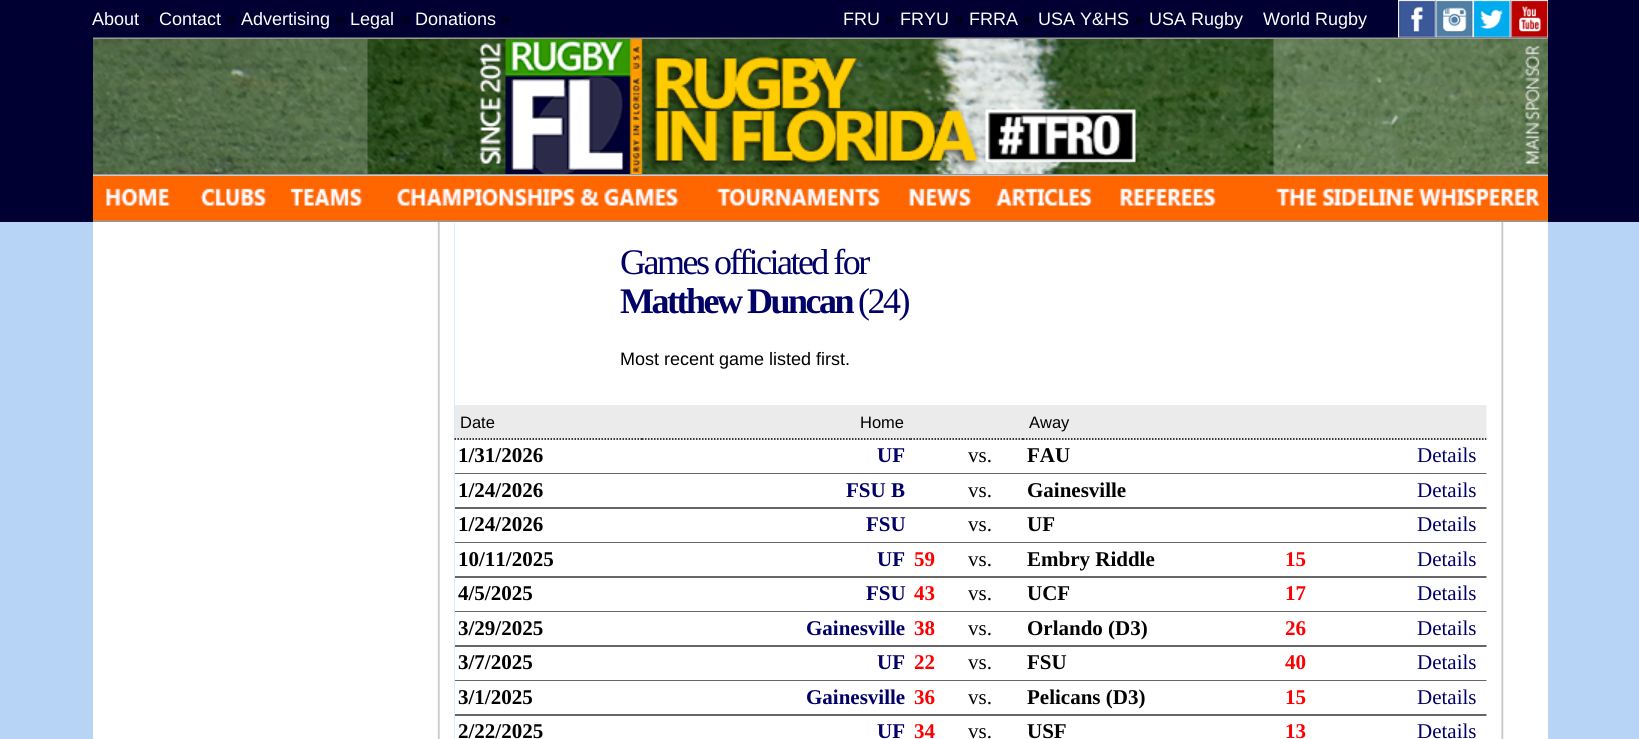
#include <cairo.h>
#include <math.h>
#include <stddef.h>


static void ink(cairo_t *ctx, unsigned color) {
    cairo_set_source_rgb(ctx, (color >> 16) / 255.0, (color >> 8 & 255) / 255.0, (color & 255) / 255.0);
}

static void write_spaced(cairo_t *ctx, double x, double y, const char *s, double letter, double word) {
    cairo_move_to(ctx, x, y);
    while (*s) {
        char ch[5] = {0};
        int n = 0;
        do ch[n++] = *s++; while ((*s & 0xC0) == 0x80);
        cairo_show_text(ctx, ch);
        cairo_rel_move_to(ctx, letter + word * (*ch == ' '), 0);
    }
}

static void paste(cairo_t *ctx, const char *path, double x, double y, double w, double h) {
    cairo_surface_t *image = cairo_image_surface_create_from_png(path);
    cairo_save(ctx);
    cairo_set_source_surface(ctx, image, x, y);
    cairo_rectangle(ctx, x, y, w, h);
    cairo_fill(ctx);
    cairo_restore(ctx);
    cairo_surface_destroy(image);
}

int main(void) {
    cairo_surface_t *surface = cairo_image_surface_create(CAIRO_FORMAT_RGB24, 1639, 739);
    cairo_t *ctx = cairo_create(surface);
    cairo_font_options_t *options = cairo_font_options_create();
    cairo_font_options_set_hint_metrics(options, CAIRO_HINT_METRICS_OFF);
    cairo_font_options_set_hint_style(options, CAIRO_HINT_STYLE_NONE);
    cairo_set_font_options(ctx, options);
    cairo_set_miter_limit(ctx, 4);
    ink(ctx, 0xB7D4F7);
    cairo_paint(ctx);
    ink(ctx, 0x000033);
    cairo_rectangle(ctx, 0, 0, 1639, 222);
    cairo_fill(ctx);
    cairo_select_font_face(ctx, "Liberation Sans", CAIRO_FONT_SLANT_NORMAL, CAIRO_FONT_WEIGHT_NORMAL);
    cairo_set_font_size(ctx, 18);
    ink(ctx, 0xFFFFFF);
    cairo_move_to(ctx, 92, 25);
    cairo_show_text(ctx, "About");
    ink(ctx, 0x000000);
    cairo_move_to(ctx, 144, 25);
    cairo_show_text(ctx, "»");
    ink(ctx, 0xFFFFFF);
    cairo_move_to(ctx, 159, 25);
    cairo_show_text(ctx, "Contact");
    ink(ctx, 0x000000);
    cairo_move_to(ctx, 226, 25);
    cairo_show_text(ctx, "»");
    ink(ctx, 0xFFFFFF);
    cairo_move_to(ctx, 241, 25);
    cairo_show_text(ctx, "Advertising");
    ink(ctx, 0x000000);
    cairo_move_to(ctx, 335, 25);
    cairo_show_text(ctx, "»");
    ink(ctx, 0xFFFFFF);
    cairo_move_to(ctx, 350, 25);
    cairo_show_text(ctx, "Legal");
    ink(ctx, 0x000000);
    cairo_move_to(ctx, 400, 25);
    cairo_show_text(ctx, "»");
    ink(ctx, 0xFFFFFF);
    cairo_move_to(ctx, 415, 25);
    cairo_show_text(ctx, "Donations");
    ink(ctx, 0x000000);
    cairo_move_to(ctx, 501, 25);
    cairo_show_text(ctx, "»");
    ink(ctx, 0xFFFFFF);
    cairo_move_to(ctx, 843, 25);
    cairo_show_text(ctx, "FRU");
    ink(ctx, 0x000000);
    cairo_move_to(ctx, 885, 25);
    cairo_show_text(ctx, "»");
    ink(ctx, 0xFFFFFF);
    cairo_move_to(ctx, 900, 25);
    cairo_show_text(ctx, "FRYU");
    ink(ctx, 0x000000);
    cairo_move_to(ctx, 954, 25);
    cairo_show_text(ctx, "»");
    ink(ctx, 0xFFFFFF);
    cairo_move_to(ctx, 969, 25);
    cairo_show_text(ctx, "FRRA");
    ink(ctx, 0x000000);
    cairo_move_to(ctx, 1023, 25);
    cairo_show_text(ctx, "»");
    ink(ctx, 0xFFFFFF);
    cairo_move_to(ctx, 1038, 25);
    cairo_show_text(ctx, "USA Y&HS");
    ink(ctx, 0x000000);
    cairo_move_to(ctx, 1134, 25);
    cairo_show_text(ctx, "»");
    ink(ctx, 0xFFFFFF);
    cairo_move_to(ctx, 1149, 25);
    cairo_show_text(ctx, "USA Rugby");
    cairo_move_to(ctx, 1263, 25);
    cairo_show_text(ctx, "World Rugby");
    paste(ctx, "media/1.png", 1398, 0, 38, 38);
    paste(ctx, "media/2.png", 1435, 0, 38, 38);
    paste(ctx, "media/3.png", 1473, 0, 38, 38);
    paste(ctx, "media/4.png", 1510, 0, 38, 38);
    paste(ctx, "media/5.png", 93, 37, 1455, 2);
    paste(ctx, "media/6.png", 93, 39, 1455, 135);
    cairo_rectangle(ctx, 93, 175, 1455, 1);
    cairo_fill(ctx);
    paste(ctx, "media/7.png", 93, 174, 1455, 2);
    ink(ctx, 0xFF6600);
    cairo_rectangle(ctx, 93, 176, 1455, 45);
    cairo_fill(ctx);
    paste(ctx, "media/8.png", 106, 188, 64, 18);
    paste(ctx, "media/9.png", 200, 188, 66, 18);
    paste(ctx, "media/10.png", 290, 188, 72, 18);
    paste(ctx, "media/11.png", 397, 188, 282, 18);
    paste(ctx, "media/12.png", 716, 188, 164, 18);
    paste(ctx, "media/13.png", 908, 188, 63, 18);
    paste(ctx, "media/14.png", 995, 188, 98, 18);
    paste(ctx, "media/15.png", 1120, 188, 96, 18);
    paste(ctx, "media/16.png", 1276, 188, 264, 18);
    ink(ctx, 0xFFFFFF);
    cairo_rectangle(ctx, 454, 222, 1, 1);
    cairo_fill(ctx);
    paste(ctx, "media/17.png", 93, 220, 1455, 2);
    cairo_rectangle(ctx, 93, 222, 330, 517);
    cairo_fill(ctx);
    paste(ctx, "media/18.png", 423, 222, 32, 517);
    cairo_rectangle(ctx, 455, 222, 1032, 517);
    cairo_fill(ctx);
    cairo_select_font_face(ctx, "Liberation Serif", CAIRO_FONT_SLANT_NORMAL, CAIRO_FONT_WEIGHT_NORMAL);
    cairo_set_font_size(ctx, 36);
    ink(ctx, 0x000066);
    write_spaced(ctx, 620, 274, "Games officiated for", -2.5, 0);
    cairo_select_font_face(ctx, "Liberation Serif", CAIRO_FONT_SLANT_NORMAL, CAIRO_FONT_WEIGHT_BOLD);
    write_spaced(ctx, 620, 313, "Matthew Duncan", -2.5, 0);
    cairo_select_font_face(ctx, "Liberation Serif", CAIRO_FONT_SLANT_NORMAL, CAIRO_FONT_WEIGHT_NORMAL);
    write_spaced(ctx, 858, 313, "(24)", -2.5, 0);
    cairo_select_font_face(ctx, "Liberation Sans", CAIRO_FONT_SLANT_NORMAL, CAIRO_FONT_WEIGHT_NORMAL);
    cairo_set_font_size(ctx, 18);
    ink(ctx, 0x000000);
    cairo_move_to(ctx, 620, 365);
    cairo_show_text(ctx, "Most recent game listed first.");
    ink(ctx, 0xEBEBEB);
    cairo_rectangle(ctx, 455, 405, 1032, 35);
    cairo_fill(ctx);
    cairo_new_path(ctx);
    cairo_move_to(ctx, 454.5, 439);
    cairo_line_to(ctx, 642, 439);
    ink(ctx, 0x000000);
    cairo_set_line_width(ctx, 1.5);
    cairo_set_dash(ctx, (double[]){1.5, 1.5}, 2, 0);
    cairo_stroke(ctx);
    cairo_set_font_size(ctx, 16.5);
    cairo_move_to(ctx, 460, 428);
    cairo_show_text(ctx, "Date");
    cairo_new_path(ctx);
    cairo_move_to(ctx, 642, 439);
    cairo_line_to(ctx, 910.5, 439);
    cairo_stroke(ctx);
    cairo_move_to(ctx, 860, 428);
    cairo_show_text(ctx, "Home");
    cairo_new_path(ctx);
    cairo_move_to(ctx, 1023, 439);
    cairo_line_to(ctx, 1281, 439);
    cairo_stroke(ctx);
    cairo_move_to(ctx, 1029, 428);
    cairo_show_text(ctx, "Away");
    cairo_new_path(ctx);
    cairo_move_to(ctx, 910.5, 439);
    cairo_line_to(ctx, 964.5, 439);
    cairo_stroke(ctx);
    cairo_new_path(ctx);
    cairo_move_to(ctx, 964.5, 439);
    cairo_line_to(ctx, 1023, 439);
    cairo_stroke(ctx);
    cairo_new_path(ctx);
    cairo_move_to(ctx, 1281, 439);
    cairo_line_to(ctx, 1353, 439);
    cairo_stroke(ctx);
    cairo_new_path(ctx);
    cairo_move_to(ctx, 1353, 439);
    cairo_line_to(ctx, 1486.5, 439);
    cairo_stroke(ctx);
    ink(ctx, 0x666666);
    cairo_rectangle(ctx, 455, 473, 1032, 1);
    cairo_fill(ctx);
    cairo_select_font_face(ctx, "Liberation Serif", CAIRO_FONT_SLANT_NORMAL, CAIRO_FONT_WEIGHT_BOLD);
    cairo_set_font_size(ctx, 21);
    ink(ctx, 0x000000);
    cairo_move_to(ctx, 458, 462);
    cairo_show_text(ctx, "1/31/2026");
    ink(ctx, 0x000066);
    cairo_move_to(ctx, 877, 462);
    cairo_show_text(ctx, "UF");
    cairo_select_font_face(ctx, "Liberation Serif", CAIRO_FONT_SLANT_NORMAL, CAIRO_FONT_WEIGHT_NORMAL);
    ink(ctx, 0x000000);
    cairo_move_to(ctx, 968, 462);
    cairo_show_text(ctx, "vs.");
    cairo_select_font_face(ctx, "Liberation Serif", CAIRO_FONT_SLANT_NORMAL, CAIRO_FONT_WEIGHT_BOLD);
    cairo_move_to(ctx, 1027, 462);
    cairo_show_text(ctx, "FAU");
    cairo_select_font_face(ctx, "Liberation Serif", CAIRO_FONT_SLANT_NORMAL, CAIRO_FONT_WEIGHT_NORMAL);
    ink(ctx, 0x000066);
    cairo_move_to(ctx, 1417, 462);
    cairo_show_text(ctx, "Details");
    ink(ctx, 0x666666);
    cairo_rectangle(ctx, 455, 507, 1032, 2);
    cairo_fill(ctx);
    cairo_select_font_face(ctx, "Liberation Serif", CAIRO_FONT_SLANT_NORMAL, CAIRO_FONT_WEIGHT_BOLD);
    ink(ctx, 0x000000);
    cairo_move_to(ctx, 458, 497);
    cairo_show_text(ctx, "1/24/2026");
    ink(ctx, 0x000066);
    cairo_move_to(ctx, 846, 497);
    cairo_show_text(ctx, "FSU B");
    cairo_select_font_face(ctx, "Liberation Serif", CAIRO_FONT_SLANT_NORMAL, CAIRO_FONT_WEIGHT_NORMAL);
    ink(ctx, 0x000000);
    cairo_move_to(ctx, 968, 497);
    cairo_show_text(ctx, "vs.");
    cairo_select_font_face(ctx, "Liberation Serif", CAIRO_FONT_SLANT_NORMAL, CAIRO_FONT_WEIGHT_BOLD);
    cairo_move_to(ctx, 1027, 497);
    cairo_show_text(ctx, "Gainesville");
    cairo_select_font_face(ctx, "Liberation Serif", CAIRO_FONT_SLANT_NORMAL, CAIRO_FONT_WEIGHT_NORMAL);
    ink(ctx, 0x000066);
    cairo_move_to(ctx, 1417, 497);
    cairo_show_text(ctx, "Details");
    ink(ctx, 0x666666);
    cairo_rectangle(ctx, 455, 542, 1032, 1);
    cairo_fill(ctx);
    cairo_select_font_face(ctx, "Liberation Serif", CAIRO_FONT_SLANT_NORMAL, CAIRO_FONT_WEIGHT_BOLD);
    ink(ctx, 0x000000);
    cairo_move_to(ctx, 458, 531);
    cairo_show_text(ctx, "1/24/2026");
    ink(ctx, 0x000066);
    cairo_move_to(ctx, 866, 531);
    cairo_show_text(ctx, "FSU");
    cairo_select_font_face(ctx, "Liberation Serif", CAIRO_FONT_SLANT_NORMAL, CAIRO_FONT_WEIGHT_NORMAL);
    ink(ctx, 0x000000);
    cairo_move_to(ctx, 968, 531);
    cairo_show_text(ctx, "vs.");
    cairo_select_font_face(ctx, "Liberation Serif", CAIRO_FONT_SLANT_NORMAL, CAIRO_FONT_WEIGHT_BOLD);
    cairo_move_to(ctx, 1027, 531);
    cairo_show_text(ctx, "UF");
    cairo_select_font_face(ctx, "Liberation Serif", CAIRO_FONT_SLANT_NORMAL, CAIRO_FONT_WEIGHT_NORMAL);
    ink(ctx, 0x000066);
    cairo_move_to(ctx, 1417, 531);
    cairo_show_text(ctx, "Details");
    ink(ctx, 0x666666);
    cairo_rectangle(ctx, 455, 576, 1032, 2);
    cairo_fill(ctx);
    cairo_select_font_face(ctx, "Liberation Serif", CAIRO_FONT_SLANT_NORMAL, CAIRO_FONT_WEIGHT_BOLD);
    ink(ctx, 0x000000);
    cairo_move_to(ctx, 458, 566);
    cairo_show_text(ctx, "10/11/2025");
    ink(ctx, 0x000066);
    cairo_move_to(ctx, 877, 566);
    cairo_show_text(ctx, "UF");
    ink(ctx, 0xFF0000);
    cairo_move_to(ctx, 914, 566);
    cairo_show_text(ctx, "59");
    cairo_select_font_face(ctx, "Liberation Serif", CAIRO_FONT_SLANT_NORMAL, CAIRO_FONT_WEIGHT_NORMAL);
    ink(ctx, 0x000000);
    cairo_move_to(ctx, 968, 566);
    cairo_show_text(ctx, "vs.");
    cairo_select_font_face(ctx, "Liberation Serif", CAIRO_FONT_SLANT_NORMAL, CAIRO_FONT_WEIGHT_BOLD);
    cairo_move_to(ctx, 1027, 566);
    cairo_show_text(ctx, "Embry Riddle");
    ink(ctx, 0xFF0000);
    cairo_move_to(ctx, 1285, 566);
    cairo_show_text(ctx, "15");
    cairo_select_font_face(ctx, "Liberation Serif", CAIRO_FONT_SLANT_NORMAL, CAIRO_FONT_WEIGHT_NORMAL);
    ink(ctx, 0x000066);
    cairo_move_to(ctx, 1417, 566);
    cairo_show_text(ctx, "Details");
    ink(ctx, 0x666666);
    cairo_rectangle(ctx, 455, 611, 1032, 1);
    cairo_fill(ctx);
    cairo_select_font_face(ctx, "Liberation Serif", CAIRO_FONT_SLANT_NORMAL, CAIRO_FONT_WEIGHT_BOLD);
    ink(ctx, 0x000000);
    cairo_move_to(ctx, 458, 600);
    cairo_show_text(ctx, "4/5/2025");
    ink(ctx, 0x000066);
    cairo_move_to(ctx, 866, 600);
    cairo_show_text(ctx, "FSU");
    ink(ctx, 0xFF0000);
    cairo_move_to(ctx, 914, 600);
    cairo_show_text(ctx, "43");
    cairo_select_font_face(ctx, "Liberation Serif", CAIRO_FONT_SLANT_NORMAL, CAIRO_FONT_WEIGHT_NORMAL);
    ink(ctx, 0x000000);
    cairo_move_to(ctx, 968, 600);
    cairo_show_text(ctx, "vs.");
    cairo_select_font_face(ctx, "Liberation Serif", CAIRO_FONT_SLANT_NORMAL, CAIRO_FONT_WEIGHT_BOLD);
    cairo_move_to(ctx, 1027, 600);
    cairo_show_text(ctx, "UCF");
    ink(ctx, 0xFF0000);
    cairo_move_to(ctx, 1285, 600);
    cairo_show_text(ctx, "17");
    cairo_select_font_face(ctx, "Liberation Serif", CAIRO_FONT_SLANT_NORMAL, CAIRO_FONT_WEIGHT_NORMAL);
    ink(ctx, 0x000066);
    cairo_move_to(ctx, 1417, 600);
    cairo_show_text(ctx, "Details");
    ink(ctx, 0x666666);
    cairo_rectangle(ctx, 455, 645, 1032, 2);
    cairo_fill(ctx);
    cairo_select_font_face(ctx, "Liberation Serif", CAIRO_FONT_SLANT_NORMAL, CAIRO_FONT_WEIGHT_BOLD);
    ink(ctx, 0x000000);
    cairo_move_to(ctx, 458, 635);
    cairo_show_text(ctx, "3/29/2025");
    ink(ctx, 0x000066);
    cairo_move_to(ctx, 806, 635);
    cairo_show_text(ctx, "Gainesville");
    ink(ctx, 0xFF0000);
    cairo_move_to(ctx, 914, 635);
    cairo_show_text(ctx, "38");
    cairo_select_font_face(ctx, "Liberation Serif", CAIRO_FONT_SLANT_NORMAL, CAIRO_FONT_WEIGHT_NORMAL);
    ink(ctx, 0x000000);
    cairo_move_to(ctx, 968, 635);
    cairo_show_text(ctx, "vs.");
    cairo_select_font_face(ctx, "Liberation Serif", CAIRO_FONT_SLANT_NORMAL, CAIRO_FONT_WEIGHT_BOLD);
    cairo_move_to(ctx, 1027, 635);
    cairo_show_text(ctx, "Orlando (D3)");
    ink(ctx, 0xFF0000);
    cairo_move_to(ctx, 1285, 635);
    cairo_show_text(ctx, "26");
    cairo_select_font_face(ctx, "Liberation Serif", CAIRO_FONT_SLANT_NORMAL, CAIRO_FONT_WEIGHT_NORMAL);
    ink(ctx, 0x000066);
    cairo_move_to(ctx, 1417, 635);
    cairo_show_text(ctx, "Details");
    ink(ctx, 0x666666);
    cairo_rectangle(ctx, 455, 680, 1032, 1);
    cairo_fill(ctx);
    cairo_select_font_face(ctx, "Liberation Serif", CAIRO_FONT_SLANT_NORMAL, CAIRO_FONT_WEIGHT_BOLD);
    ink(ctx, 0x000000);
    cairo_move_to(ctx, 458, 669);
    cairo_show_text(ctx, "3/7/2025");
    ink(ctx, 0x000066);
    cairo_move_to(ctx, 877, 669);
    cairo_show_text(ctx, "UF");
    ink(ctx, 0xFF0000);
    cairo_move_to(ctx, 914, 669);
    cairo_show_text(ctx, "22");
    cairo_select_font_face(ctx, "Liberation Serif", CAIRO_FONT_SLANT_NORMAL, CAIRO_FONT_WEIGHT_NORMAL);
    ink(ctx, 0x000000);
    cairo_move_to(ctx, 968, 669);
    cairo_show_text(ctx, "vs.");
    cairo_select_font_face(ctx, "Liberation Serif", CAIRO_FONT_SLANT_NORMAL, CAIRO_FONT_WEIGHT_BOLD);
    cairo_move_to(ctx, 1027, 669);
    cairo_show_text(ctx, "FSU");
    ink(ctx, 0xFF0000);
    cairo_move_to(ctx, 1285, 669);
    cairo_show_text(ctx, "40");
    cairo_select_font_face(ctx, "Liberation Serif", CAIRO_FONT_SLANT_NORMAL, CAIRO_FONT_WEIGHT_NORMAL);
    ink(ctx, 0x000066);
    cairo_move_to(ctx, 1417, 669);
    cairo_show_text(ctx, "Details");
    ink(ctx, 0x666666);
    cairo_rectangle(ctx, 455, 714, 1032, 2);
    cairo_fill(ctx);
    cairo_select_font_face(ctx, "Liberation Serif", CAIRO_FONT_SLANT_NORMAL, CAIRO_FONT_WEIGHT_BOLD);
    ink(ctx, 0x000000);
    cairo_move_to(ctx, 458, 704);
    cairo_show_text(ctx, "3/1/2025");
    ink(ctx, 0x000066);
    cairo_move_to(ctx, 806, 704);
    cairo_show_text(ctx, "Gainesville");
    ink(ctx, 0xFF0000);
    cairo_move_to(ctx, 914, 704);
    cairo_show_text(ctx, "36");
    cairo_select_font_face(ctx, "Liberation Serif", CAIRO_FONT_SLANT_NORMAL, CAIRO_FONT_WEIGHT_NORMAL);
    ink(ctx, 0x000000);
    cairo_move_to(ctx, 968, 704);
    cairo_show_text(ctx, "vs.");
    cairo_select_font_face(ctx, "Liberation Serif", CAIRO_FONT_SLANT_NORMAL, CAIRO_FONT_WEIGHT_BOLD);
    cairo_move_to(ctx, 1027, 704);
    cairo_show_text(ctx, "Pelicans (D3)");
    ink(ctx, 0xFF0000);
    cairo_move_to(ctx, 1285, 704);
    cairo_show_text(ctx, "15");
    cairo_select_font_face(ctx, "Liberation Serif", CAIRO_FONT_SLANT_NORMAL, CAIRO_FONT_WEIGHT_NORMAL);
    ink(ctx, 0x000066);
    cairo_move_to(ctx, 1417, 704);
    cairo_show_text(ctx, "Details");
    cairo_select_font_face(ctx, "Liberation Serif", CAIRO_FONT_SLANT_NORMAL, CAIRO_FONT_WEIGHT_BOLD);
    ink(ctx, 0x000000);
    cairo_move_to(ctx, 458, 738);
    cairo_show_text(ctx, "2/22/2025");
    ink(ctx, 0x000066);
    cairo_move_to(ctx, 877, 738);
    cairo_show_text(ctx, "UF");
    ink(ctx, 0xFF0000);
    cairo_move_to(ctx, 914, 738);
    cairo_show_text(ctx, "34");
    cairo_select_font_face(ctx, "Liberation Serif", CAIRO_FONT_SLANT_NORMAL, CAIRO_FONT_WEIGHT_NORMAL);
    ink(ctx, 0x000000);
    cairo_move_to(ctx, 968, 738);
    cairo_show_text(ctx, "vs.");
    cairo_select_font_face(ctx, "Liberation Serif", CAIRO_FONT_SLANT_NORMAL, CAIRO_FONT_WEIGHT_BOLD);
    cairo_move_to(ctx, 1027, 738);
    cairo_show_text(ctx, "USF");
    ink(ctx, 0xFF0000);
    cairo_move_to(ctx, 1285, 738);
    cairo_show_text(ctx, "13");
    cairo_select_font_face(ctx, "Liberation Serif", CAIRO_FONT_SLANT_NORMAL, CAIRO_FONT_WEIGHT_NORMAL);
    ink(ctx, 0x000066);
    cairo_move_to(ctx, 1417, 738);
    cairo_show_text(ctx, "Details");
    paste(ctx, "media/19.png", 1486, 222, 32, 517);
    ink(ctx, 0xFFFFFF);
    cairo_rectangle(ctx, 1518, 222, 30, 517);
    cairo_fill(ctx);
    cairo_surface_write_to_png(surface, "image.png");
    cairo_font_options_destroy(options);
    cairo_destroy(ctx);
    cairo_surface_destroy(surface);
    return 0;
}
